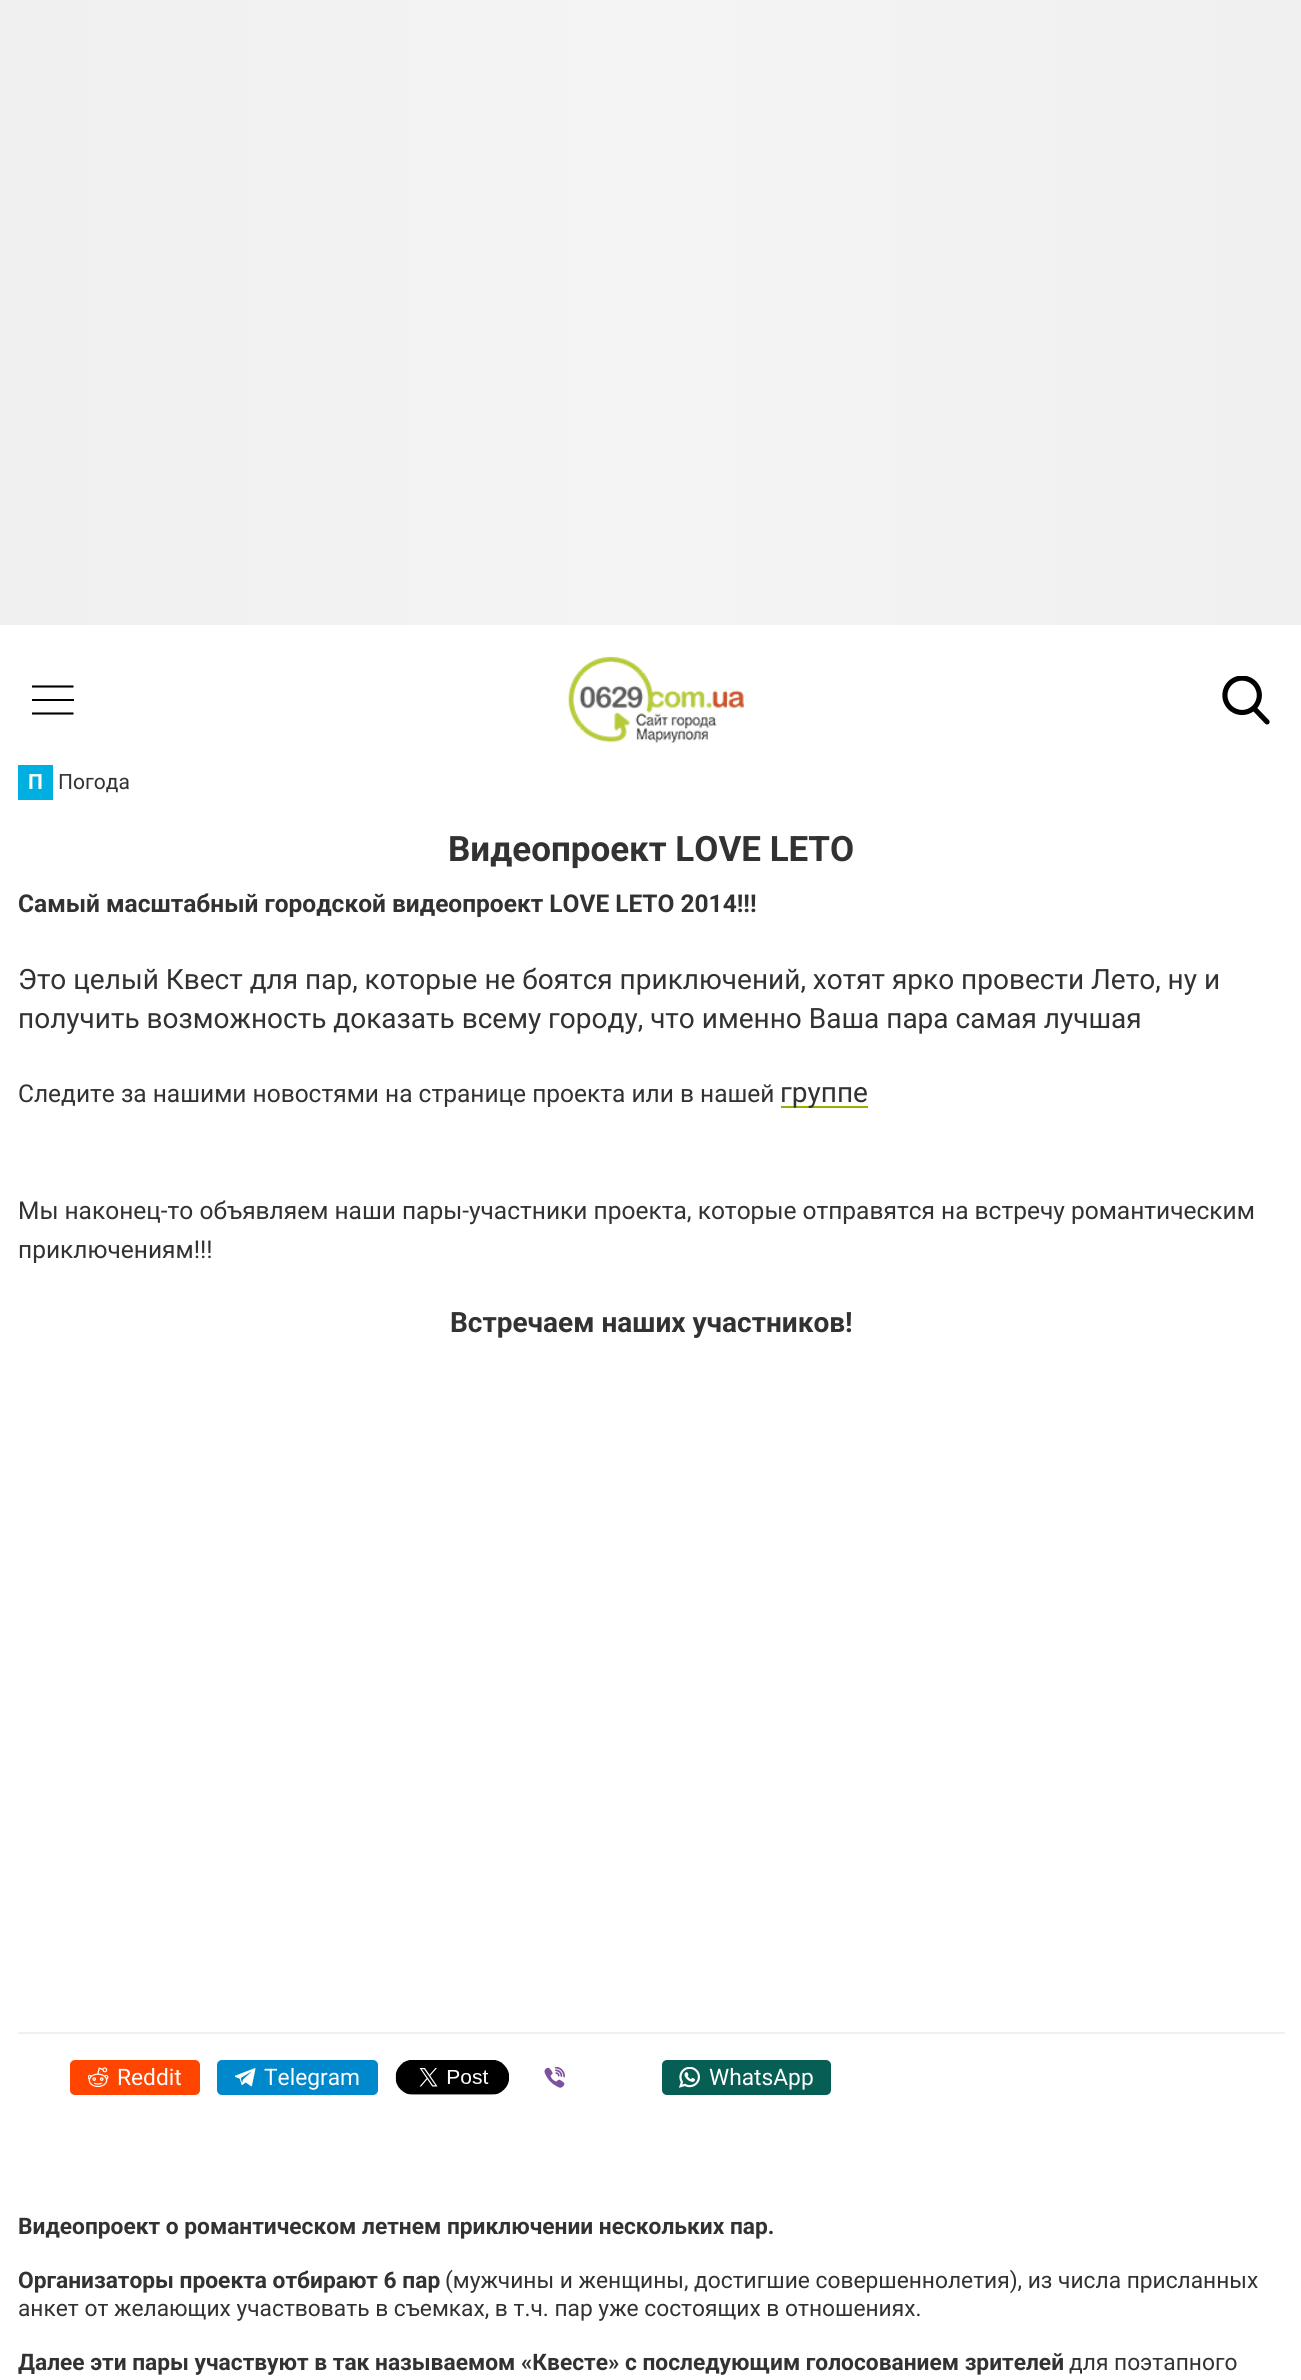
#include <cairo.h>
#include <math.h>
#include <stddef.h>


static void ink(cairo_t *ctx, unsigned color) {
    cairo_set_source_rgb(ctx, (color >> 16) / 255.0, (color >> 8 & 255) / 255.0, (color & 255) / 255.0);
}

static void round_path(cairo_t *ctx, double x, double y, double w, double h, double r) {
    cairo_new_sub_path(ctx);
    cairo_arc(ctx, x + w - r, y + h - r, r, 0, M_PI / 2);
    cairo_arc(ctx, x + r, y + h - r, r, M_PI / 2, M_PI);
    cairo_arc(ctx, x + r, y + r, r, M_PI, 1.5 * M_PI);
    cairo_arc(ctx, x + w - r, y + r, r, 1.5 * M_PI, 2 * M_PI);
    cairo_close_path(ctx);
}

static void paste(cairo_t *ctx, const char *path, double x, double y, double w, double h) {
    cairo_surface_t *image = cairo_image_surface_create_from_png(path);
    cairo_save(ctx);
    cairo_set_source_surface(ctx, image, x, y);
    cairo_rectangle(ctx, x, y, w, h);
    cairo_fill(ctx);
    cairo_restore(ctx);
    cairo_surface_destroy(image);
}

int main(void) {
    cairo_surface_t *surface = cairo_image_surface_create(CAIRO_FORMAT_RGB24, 1301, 2380);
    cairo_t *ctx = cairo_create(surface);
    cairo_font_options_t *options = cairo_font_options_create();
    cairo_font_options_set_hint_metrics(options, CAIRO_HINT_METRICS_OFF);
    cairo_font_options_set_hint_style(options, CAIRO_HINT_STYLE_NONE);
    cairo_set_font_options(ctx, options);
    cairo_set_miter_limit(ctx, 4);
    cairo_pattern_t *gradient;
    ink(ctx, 0xFFFFFF);
    cairo_paint(ctx);
    gradient = cairo_pattern_create_linear(0, 312, 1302, 312);
    cairo_pattern_add_color_stop_rgba(gradient, 0, 0.941, 0.941, 0.941, 1);
    cairo_pattern_add_color_stop_rgba(gradient, 0.5, 0.957, 0.957, 0.957, 1);
    cairo_pattern_add_color_stop_rgba(gradient, 1, 0.941, 0.941, 0.941, 1);
    cairo_set_source(ctx, gradient);
    cairo_pattern_destroy(gradient);
    cairo_rectangle(ctx, 0, 0, 1301, 625);
    cairo_fill(ctx);
    cairo_save(ctx);
    cairo_rectangle(ctx, 32, 679, 42, 42);
    cairo_clip(ctx);
    cairo_new_path(ctx);
    cairo_move_to(ctx, 31.5, 686.5);
    cairo_line_to(ctx, 73.5, 686.5);
    ink(ctx, 0x000000);
    cairo_set_line_width(ctx, 2.1);
    cairo_stroke(ctx);
    cairo_restore(ctx);
    ink(ctx, 0x000000);
    cairo_rectangle(ctx, 32, 699, 42, 2);
    cairo_fill(ctx);
    cairo_save(ctx);
    cairo_rectangle(ctx, 32, 679, 42, 42);
    cairo_clip(ctx);
    cairo_new_path(ctx);
    cairo_move_to(ctx, 31.5, 713.5);
    cairo_line_to(ctx, 73.5, 713.5);
    cairo_set_line_width(ctx, 2.1);
    cairo_stroke(ctx);
    cairo_restore(ctx);
    paste(ctx, "media/1.png", 568, 656, 176, 87);
    paste(ctx, "media/2.png", 1222, 676, 48, 49);
    ink(ctx, 0x00AFE1);
    cairo_rectangle(ctx, 18, 765, 35, 35);
    cairo_fill(ctx);
    cairo_select_font_face(ctx, "Roboto", CAIRO_FONT_SLANT_NORMAL, CAIRO_FONT_WEIGHT_BOLD);
    cairo_set_font_size(ctx, 21);
    ink(ctx, 0xFFFFFF);
    cairo_move_to(ctx, 28, 789);
    cairo_show_text(ctx, "П");
    cairo_select_font_face(ctx, "Roboto", CAIRO_FONT_SLANT_NORMAL, CAIRO_FONT_WEIGHT_NORMAL);
    ink(ctx, 0x323232);
    cairo_move_to(ctx, 58, 789);
    cairo_show_text(ctx, "Погода");
    cairo_select_font_face(ctx, "Roboto", CAIRO_FONT_SLANT_NORMAL, CAIRO_FONT_WEIGHT_BOLD);
    cairo_set_font_size(ctx, 35);
    cairo_move_to(ctx, 448, 861);
    cairo_show_text(ctx, "Видеопроект LOVE LЕТО");
    cairo_set_font_size(ctx, 24.5);
    cairo_move_to(ctx, 18, 912);
    cairo_show_text(ctx, "Самый масштабный городской видеопроект LOVE LETO 2014!!!");
    cairo_select_font_face(ctx, "Roboto", CAIRO_FONT_SLANT_NORMAL, CAIRO_FONT_WEIGHT_NORMAL);
    cairo_set_font_size(ctx, 28);
    cairo_move_to(ctx, 18, 989);
    cairo_show_text(ctx, "Это целый Квест для пар, которые не боятся приключений, хотят ярко провести Лето, ну и");
    cairo_move_to(ctx, 18, 1028);
    cairo_show_text(ctx, "получить возможность доказать всему городу, что именно Ваша пара самая лучшая");
    cairo_set_font_size(ctx, 24.5);
    cairo_move_to(ctx, 18, 1102);
    cairo_show_text(ctx, "Следите за нашими новостями на странице проекта или в нашей");
    ink(ctx, 0x90B400);
    cairo_rectangle(ctx, 781, 1106, 87, 2);
    cairo_fill(ctx);
    cairo_set_font_size(ctx, 28);
    ink(ctx, 0x323232);
    cairo_move_to(ctx, 780, 1102);
    cairo_show_text(ctx, "группе");
    cairo_set_font_size(ctx, 24.5);
    cairo_move_to(ctx, 18, 1219);
    cairo_show_text(ctx, "Мы наконец-то объявляем наши пары-участники проекта, которые отправятся на встречу романтическим");
    cairo_move_to(ctx, 18, 1258);
    cairo_show_text(ctx, "приключениям!!!");
    cairo_select_font_face(ctx, "Roboto", CAIRO_FONT_SLANT_NORMAL, CAIRO_FONT_WEIGHT_BOLD);
    cairo_set_font_size(ctx, 28);
    cairo_move_to(ctx, 450, 1332);
    cairo_show_text(ctx, "Встречаем наших участников!");
    ink(ctx, 0xF0F0F0);
    cairo_rectangle(ctx, 18, 2032, 1267, 2);
    cairo_fill(ctx);
    ink(ctx, 0xFF4500);
    round_path(ctx, 70, 2060, 130, 35, 5);
    cairo_fill(ctx);
    paste(ctx, "media/3.png", 88, 2067, 21, 21);
    cairo_select_font_face(ctx, "Roboto", CAIRO_FONT_SLANT_NORMAL, CAIRO_FONT_WEIGHT_NORMAL);
    cairo_set_font_size(ctx, 22.75);
    ink(ctx, 0xFFFFFF);
    cairo_move_to(ctx, 117, 2085);
    cairo_show_text(ctx, "Reddit");
    ink(ctx, 0x0088CC);
    round_path(ctx, 217, 2060, 161, 35, 5);
    cairo_fill(ctx);
    paste(ctx, "media/4.png", 235, 2068, 21, 19);
    ink(ctx, 0xFFFFFF);
    cairo_move_to(ctx, 264, 2085);
    cairo_show_text(ctx, "Telegram");
    paste(ctx, "media/5.png", 395, 2060, 114, 35);
    paste(ctx, "media/6.png", 544, 2067, 21, 21);
    ink(ctx, 0x075E54);
    round_path(ctx, 662, 2060, 169, 35, 5);
    cairo_fill(ctx);
    paste(ctx, "media/7.png", 679, 2067, 21, 21);
    ink(ctx, 0xFFFFFF);
    cairo_move_to(ctx, 709, 2085);
    cairo_show_text(ctx, "WhatsApp");
    cairo_select_font_face(ctx, "Roboto", CAIRO_FONT_SLANT_NORMAL, CAIRO_FONT_WEIGHT_BOLD);
    ink(ctx, 0x323232);
    cairo_move_to(ctx, 18, 2234);
    cairo_show_text(ctx, "Видеопроект о романтическом летнем приключении нескольких пар.");
    cairo_move_to(ctx, 18, 2288);
    cairo_show_text(ctx, "Организаторы проекта отбирают 6 пар");
    cairo_select_font_face(ctx, "Roboto", CAIRO_FONT_SLANT_NORMAL, CAIRO_FONT_WEIGHT_NORMAL);
    cairo_move_to(ctx, 445, 2288);
    cairo_show_text(ctx, "(мужчины и женщины, достигшие совершеннолетия), из числа присланных");
    cairo_move_to(ctx, 18, 2316);
    cairo_show_text(ctx, "анкет от желающих участвовать в съемках, в т.ч. пар уже состоящих в отношениях.");
    cairo_select_font_face(ctx, "Roboto", CAIRO_FONT_SLANT_NORMAL, CAIRO_FONT_WEIGHT_BOLD);
    cairo_move_to(ctx, 18, 2370);
    cairo_show_text(ctx, "Далее эти пары участвуют в так называемом «Квесте» с последующим голосованием зрителей");
    cairo_select_font_face(ctx, "Roboto", CAIRO_FONT_SLANT_NORMAL, CAIRO_FONT_WEIGHT_NORMAL);
    cairo_move_to(ctx, 1069, 2370);
    cairo_show_text(ctx, "для поэтапного");
    cairo_surface_write_to_png(surface, "image.png");
    cairo_font_options_destroy(options);
    cairo_destroy(ctx);
    cairo_surface_destroy(surface);
    return 0;
}
